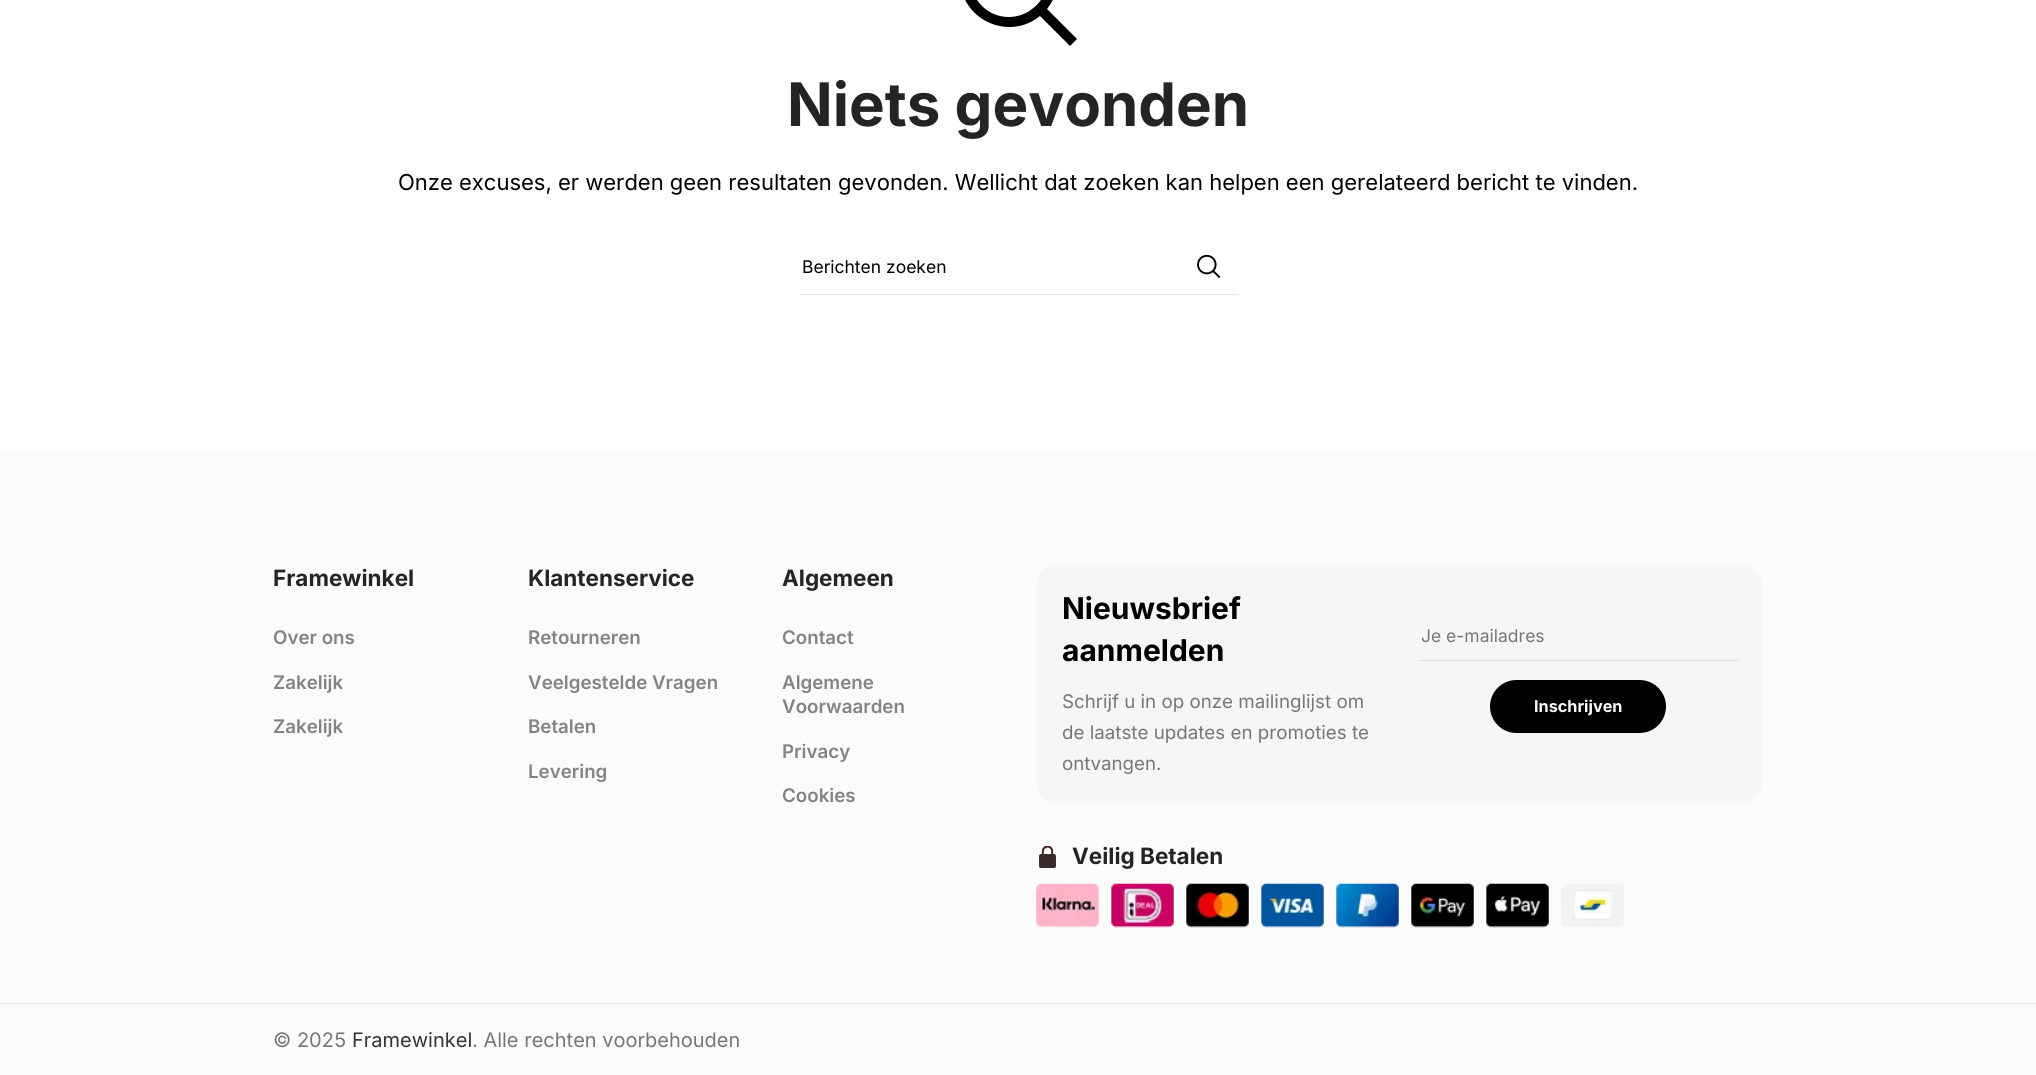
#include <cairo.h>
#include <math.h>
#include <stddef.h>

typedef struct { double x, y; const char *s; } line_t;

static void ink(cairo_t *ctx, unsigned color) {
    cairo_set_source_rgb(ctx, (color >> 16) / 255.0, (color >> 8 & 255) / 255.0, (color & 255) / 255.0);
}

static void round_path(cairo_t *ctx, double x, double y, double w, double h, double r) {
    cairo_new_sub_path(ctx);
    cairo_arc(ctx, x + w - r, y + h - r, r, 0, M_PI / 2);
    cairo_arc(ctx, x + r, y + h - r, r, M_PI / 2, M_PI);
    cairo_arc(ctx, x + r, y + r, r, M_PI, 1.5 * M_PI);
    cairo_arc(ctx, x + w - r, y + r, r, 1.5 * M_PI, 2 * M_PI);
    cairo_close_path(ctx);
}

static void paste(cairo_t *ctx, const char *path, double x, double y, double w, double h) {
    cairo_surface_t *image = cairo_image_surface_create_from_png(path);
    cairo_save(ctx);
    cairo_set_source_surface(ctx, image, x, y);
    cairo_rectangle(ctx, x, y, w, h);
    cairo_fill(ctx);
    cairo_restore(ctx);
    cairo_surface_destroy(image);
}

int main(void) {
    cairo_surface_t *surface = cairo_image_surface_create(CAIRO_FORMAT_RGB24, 2036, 1075);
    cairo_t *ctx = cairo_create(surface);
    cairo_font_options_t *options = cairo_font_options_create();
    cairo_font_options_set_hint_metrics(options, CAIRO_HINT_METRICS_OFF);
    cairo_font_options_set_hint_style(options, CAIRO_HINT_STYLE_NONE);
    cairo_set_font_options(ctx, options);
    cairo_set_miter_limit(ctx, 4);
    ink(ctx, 0xFFFFFF);
    cairo_paint(ctx);
    ink(ctx, 0x000000);
    cairo_new_path(ctx);
    cairo_move_to(ctx, 960, -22);
    cairo_curve_to(ctx, 960, 19, 1008, 42, 1040, 16);
    cairo_line_to(ctx, 1070, 46);
    cairo_line_to(ctx, 1077, 39);
    cairo_line_to(ctx, 1047, 9);
    cairo_curve_to(ctx, 1055, -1, 1059, -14, 1058, -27);
    cairo_curve_to(ctx, 1057, -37, 1053, -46, 1047, -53);
    cairo_curve_to(ctx, 1018, -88, 960, -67, 960, -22);
    cairo_close_path(ctx);
    cairo_move_to(ctx, 1009, 17);
    cairo_curve_to(ctx, 972, 17, 956, -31, 986, -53);
    cairo_curve_to(ctx, 992, -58, 1001, -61, 1009, -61);
    cairo_curve_to(ctx, 1046, -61, 1062, -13, 1032, 9);
    cairo_curve_to(ctx, 1026, 14, 1017, 17, 1009, 17);
    cairo_close_path(ctx);
    cairo_fill(ctx);
    cairo_select_font_face(ctx, "Inter", CAIRO_FONT_SLANT_NORMAL, CAIRO_FONT_WEIGHT_BOLD);
    cairo_set_font_size(ctx, 60);
    ink(ctx, 0x242424);
    cairo_move_to(ctx, 787, 126);
    cairo_show_text(ctx, "Niets gevonden");
    cairo_select_font_face(ctx, "Inter", CAIRO_FONT_SLANT_NORMAL, CAIRO_FONT_WEIGHT_NORMAL);
    cairo_set_font_size(ctx, 22);
    ink(ctx, 0x000000);
    cairo_move_to(ctx, 398, 190);
    cairo_show_text(ctx, "Onze excuses, er werden geen resultaten gevonden. Wellicht dat zoeken kan helpen een gerelateerd bericht te vinden.");
    ink(ctx, 0xE6E6E6);
    cairo_rectangle(ctx, 800, 294, 438, 1);
    cairo_fill(ctx);
    cairo_set_font_size(ctx, 17.5);
    ink(ctx, 0x000000);
    cairo_move_to(ctx, 802, 273);
    cairo_show_text(ctx, "Berichten zoeken");
    paste(ctx, "media/1.png", 1197, 254, 24, 24);
    ink(ctx, 0xFBFBFB);
    cairo_rectangle(ctx, 0, 450, 2036, 625);
    cairo_fill(ctx);
    cairo_select_font_face(ctx, "Inter", CAIRO_FONT_SLANT_NORMAL, CAIRO_FONT_WEIGHT_BOLD);
    cairo_set_font_size(ctx, 22.5);
    ink(ctx, 0x242424);
    cairo_move_to(ctx, 273, 586);
    cairo_show_text(ctx, "Framewinkel");
    cairo_select_font_face(ctx, "Inter SemiBold", CAIRO_FONT_SLANT_NORMAL, CAIRO_FONT_WEIGHT_NORMAL);
    cairo_set_font_size(ctx, 18.75);
    ink(ctx, 0x838383);
    {
        static const line_t items[] = {
            {273, 644, "Over ons"},
            {273, 689, "Zakelijk"},
            {273, 733, "Zakelijk"},
        };
        for (size_t i = 0; i < sizeof items / sizeof *items; i++) {
            cairo_move_to(ctx, items[i].x, items[i].y);
            cairo_show_text(ctx, items[i].s);
        }
    }
    cairo_select_font_face(ctx, "Inter", CAIRO_FONT_SLANT_NORMAL, CAIRO_FONT_WEIGHT_BOLD);
    cairo_set_font_size(ctx, 22.5);
    ink(ctx, 0x242424);
    cairo_move_to(ctx, 528, 586);
    cairo_show_text(ctx, "Klantenservice");
    cairo_select_font_face(ctx, "Inter SemiBold", CAIRO_FONT_SLANT_NORMAL, CAIRO_FONT_WEIGHT_NORMAL);
    cairo_set_font_size(ctx, 18.75);
    ink(ctx, 0x838383);
    {
        static const line_t items[] = {
            {528, 644, "Retourneren"},
            {528, 689, "Veelgestelde Vragen"},
            {528, 733, "Betalen"},
            {528, 778, "Levering"},
        };
        for (size_t i = 0; i < sizeof items / sizeof *items; i++) {
            cairo_move_to(ctx, items[i].x, items[i].y);
            cairo_show_text(ctx, items[i].s);
        }
    }
    cairo_select_font_face(ctx, "Inter", CAIRO_FONT_SLANT_NORMAL, CAIRO_FONT_WEIGHT_BOLD);
    cairo_set_font_size(ctx, 22.5);
    ink(ctx, 0x242424);
    cairo_move_to(ctx, 782, 586);
    cairo_show_text(ctx, "Algemeen");
    cairo_select_font_face(ctx, "Inter SemiBold", CAIRO_FONT_SLANT_NORMAL, CAIRO_FONT_WEIGHT_NORMAL);
    cairo_set_font_size(ctx, 18.75);
    ink(ctx, 0x838383);
    {
        static const line_t items[] = {
            {782, 644, "Contact"},
            {782, 689, "Algemene"},
            {782, 713, "Voorwaarden"},
            {782, 758, "Privacy"},
            {782, 802, "Cookies"},
        };
        for (size_t i = 0; i < sizeof items / sizeof *items; i++) {
            cairo_move_to(ctx, items[i].x, items[i].y);
            cairo_show_text(ctx, items[i].s);
        }
    }
    ink(ctx, 0xF6F5F8);
    round_path(ctx, 1036, 563, 727, 242, 25);
    cairo_fill(ctx);
    cairo_select_font_face(ctx, "Inter", CAIRO_FONT_SLANT_NORMAL, CAIRO_FONT_WEIGHT_BOLD);
    cairo_set_font_size(ctx, 30);
    ink(ctx, 0x000000);
    cairo_move_to(ctx, 1062, 619);
    cairo_show_text(ctx, "Nieuwsbrief");
    cairo_move_to(ctx, 1062, 661);
    cairo_show_text(ctx, "aanmelden");
    cairo_select_font_face(ctx, "Inter", CAIRO_FONT_SLANT_NORMAL, CAIRO_FONT_WEIGHT_NORMAL);
    cairo_set_font_size(ctx, 18.75);
    ink(ctx, 0x767676);
    {
        static const line_t items[] = {
            {1062, 708, "Schrijf u in op onze mailinglijst om"},
            {1062, 739, "de laatste updates en promoties te"},
            {1062, 770, "ontvangen."},
        };
        for (size_t i = 0; i < sizeof items / sizeof *items; i++) {
            cairo_move_to(ctx, items[i].x, items[i].y);
            cairo_show_text(ctx, items[i].s);
        }
    }
    ink(ctx, 0xDDDDDF);
    cairo_rectangle(ctx, 1419, 660, 319, 1);
    cairo_fill(ctx);
    cairo_set_font_size(ctx, 17.5);
    ink(ctx, 0x767676);
    cairo_move_to(ctx, 1421, 642);
    cairo_show_text(ctx, "Je e-mailadres");
    ink(ctx, 0x000000);
    round_path(ctx, 1490, 680, 176, 53, 26.5);
    cairo_fill(ctx);
    cairo_select_font_face(ctx, "Inter", CAIRO_FONT_SLANT_NORMAL, CAIRO_FONT_WEIGHT_BOLD);
    cairo_set_font_size(ctx, 16.25);
    ink(ctx, 0xFFFFFF);
    cairo_move_to(ctx, 1534, 712);
    cairo_show_text(ctx, "Inschrijven");
    paste(ctx, "media/2.png", 1039, 846, 17, 22);
    cairo_set_font_size(ctx, 22.5);
    ink(ctx, 0x242424);
    cairo_move_to(ctx, 1072, 864);
    cairo_show_text(ctx, "Veilig Betalen");
    paste(ctx, "media/3.png", 1036, 883, 588, 45);
    ink(ctx, 0xE0E0E0);
    cairo_rectangle(ctx, 0, 1003, 2036, 1);
    cairo_fill(ctx);
    cairo_select_font_face(ctx, "Inter", CAIRO_FONT_SLANT_NORMAL, CAIRO_FONT_WEIGHT_NORMAL);
    cairo_set_font_size(ctx, 20);
    ink(ctx, 0x767676);
    cairo_move_to(ctx, 273, 1047);
    cairo_show_text(ctx, "© 2025");
    ink(ctx, 0x333333);
    cairo_move_to(ctx, 352, 1047);
    cairo_show_text(ctx, "Framewinkel");
    ink(ctx, 0x767676);
    cairo_move_to(ctx, 472, 1047);
    cairo_show_text(ctx, ". Alle rechten voorbehouden");
    cairo_surface_write_to_png(surface, "image.png");
    cairo_font_options_destroy(options);
    cairo_destroy(ctx);
    cairo_surface_destroy(surface);
    return 0;
}
